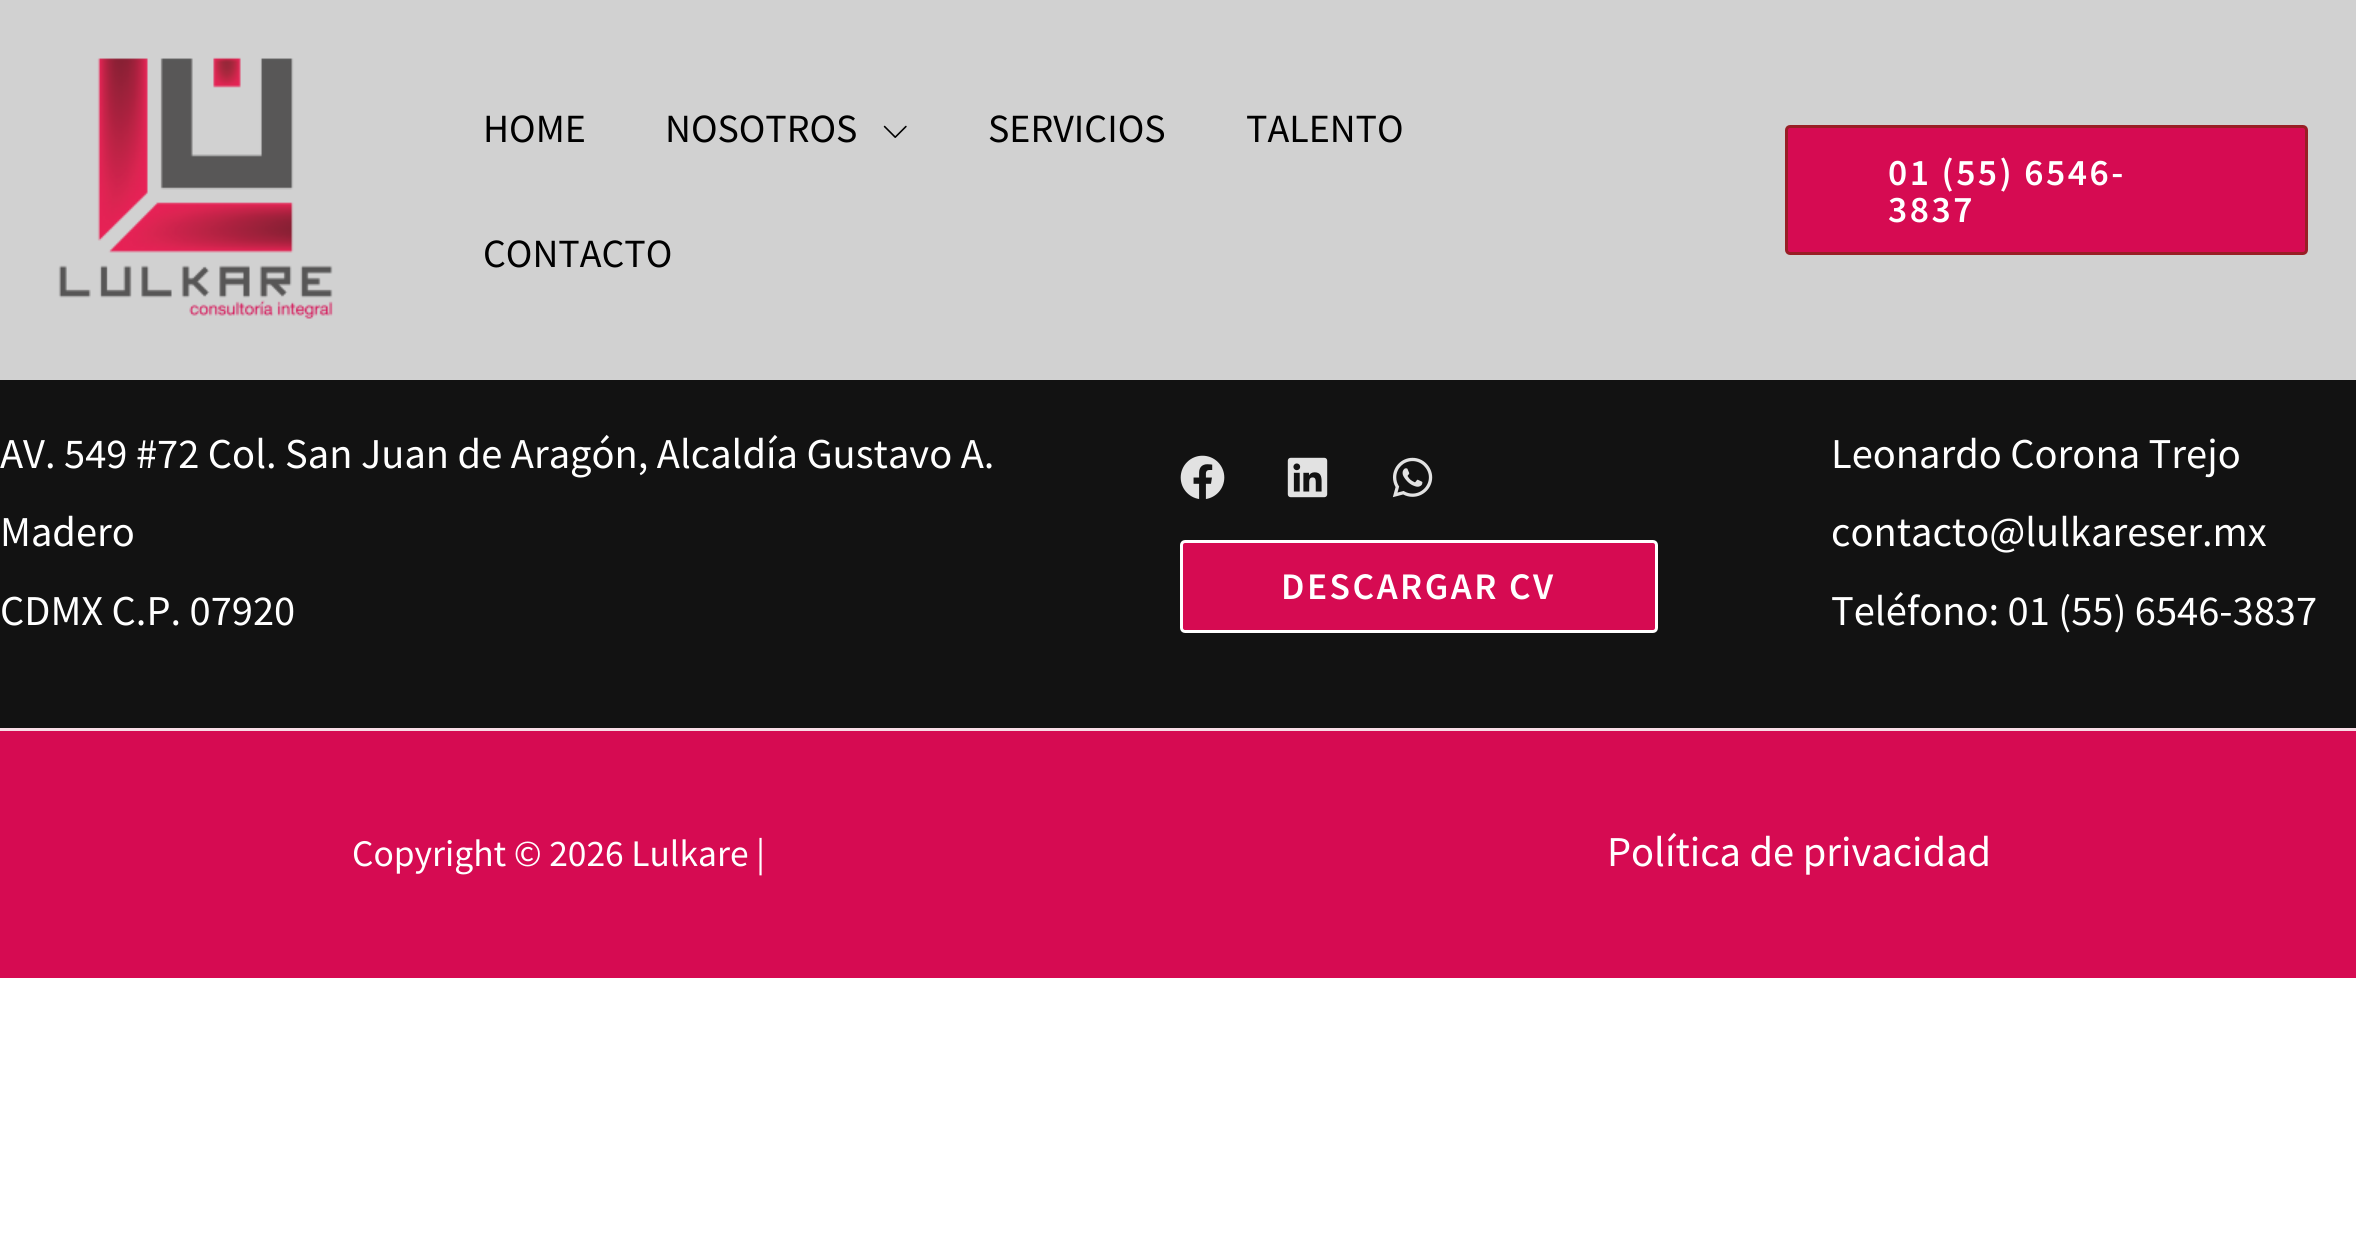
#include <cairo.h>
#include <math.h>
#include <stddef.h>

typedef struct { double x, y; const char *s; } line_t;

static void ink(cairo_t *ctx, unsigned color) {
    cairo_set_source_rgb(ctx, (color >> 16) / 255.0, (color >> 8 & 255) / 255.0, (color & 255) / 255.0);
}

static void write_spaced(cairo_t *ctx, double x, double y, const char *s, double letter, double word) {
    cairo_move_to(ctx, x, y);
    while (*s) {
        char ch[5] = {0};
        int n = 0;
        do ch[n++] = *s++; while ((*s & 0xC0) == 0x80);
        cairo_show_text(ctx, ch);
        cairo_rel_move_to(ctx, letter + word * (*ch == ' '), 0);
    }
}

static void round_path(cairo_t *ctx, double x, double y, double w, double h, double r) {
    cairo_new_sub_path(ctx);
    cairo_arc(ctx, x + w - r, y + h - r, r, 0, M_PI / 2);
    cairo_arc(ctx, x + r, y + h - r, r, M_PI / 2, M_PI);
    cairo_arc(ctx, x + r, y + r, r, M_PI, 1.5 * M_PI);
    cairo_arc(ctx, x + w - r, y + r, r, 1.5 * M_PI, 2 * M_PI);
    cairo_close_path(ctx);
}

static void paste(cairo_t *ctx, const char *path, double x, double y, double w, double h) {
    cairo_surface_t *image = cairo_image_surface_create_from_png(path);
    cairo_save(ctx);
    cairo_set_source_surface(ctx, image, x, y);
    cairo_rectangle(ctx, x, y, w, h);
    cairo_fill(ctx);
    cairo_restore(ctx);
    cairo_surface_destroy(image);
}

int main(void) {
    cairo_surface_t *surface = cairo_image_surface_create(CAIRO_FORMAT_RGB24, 2356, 1239);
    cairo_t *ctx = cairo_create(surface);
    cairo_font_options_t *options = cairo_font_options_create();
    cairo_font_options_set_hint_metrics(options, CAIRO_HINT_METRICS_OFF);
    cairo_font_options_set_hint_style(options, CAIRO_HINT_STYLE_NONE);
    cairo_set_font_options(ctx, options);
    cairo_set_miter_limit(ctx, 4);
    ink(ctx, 0xFFFFFF);
    cairo_paint(ctx);
    ink(ctx, 0xD1D1D1);
    cairo_rectangle(ctx, 0, 0, 2356, 380);
    cairo_fill(ctx);
    paste(ctx, "media/1.png", 58, 57, 275, 262);
    cairo_select_font_face(ctx, "Source Sans Pro", CAIRO_FONT_SLANT_NORMAL, CAIRO_FONT_WEIGHT_NORMAL);
    cairo_set_font_size(ctx, 40);
    ink(ctx, 0x000000);
    cairo_move_to(ctx, 483, 142);
    cairo_show_text(ctx, "HOME");
    cairo_move_to(ctx, 665, 142);
    cairo_show_text(ctx, "NOSOTROS");
    paste(ctx, "media/2.png", 883, 125, 24, 13);
    {
        static const line_t items[] = {
            {988, 142, "SERVICIOS"},
            {1246, 142, "TALENTO"},
            {483, 267, "CONTACTO"},
        };
        for (size_t i = 0; i < sizeof items / sizeof *items; i++) {
            cairo_move_to(ctx, items[i].x, items[i].y);
            cairo_show_text(ctx, items[i].s);
        }
    }
    ink(ctx, 0xD60B52);
    round_path(ctx, 1786.5, 126.5, 520, 127, 3.5);
    cairo_fill_preserve(ctx);
    ink(ctx, 0x981E25);
    cairo_set_line_width(ctx, 3);
    cairo_stroke(ctx);
    cairo_select_font_face(ctx, "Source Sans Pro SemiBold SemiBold", CAIRO_FONT_SLANT_NORMAL, CAIRO_FONT_WEIGHT_NORMAL);
    cairo_set_font_size(ctx, 37.5);
    ink(ctx, 0xFFFFFF);
    write_spaced(ctx, 1888, 185, "01 (55) 6546-", 2.5, 0);
    write_spaced(ctx, 1888, 222, "3837", 2.5, 0);
    ink(ctx, 0x121212);
    cairo_rectangle(ctx, 0, 380, 2356, 348);
    cairo_fill(ctx);
    cairo_select_font_face(ctx, "Source Sans Pro", CAIRO_FONT_SLANT_NORMAL, CAIRO_FONT_WEIGHT_NORMAL);
    cairo_set_font_size(ctx, 42.5);
    ink(ctx, 0xFFFFFF);
    {
        static const line_t items[] = {
            {0, 468, "AV. 549 #72 Col. San Juan de Aragón, Alcaldía Gustavo A."},
            {0, 546, "Madero"},
            {0, 625, "CDMX C.P. 07920"},
        };
        for (size_t i = 0; i < sizeof items / sizeof *items; i++) {
            cairo_move_to(ctx, items[i].x, items[i].y);
            cairo_show_text(ctx, items[i].s);
        }
    }
    paste(ctx, "media/3.png", 1180, 455, 45, 44);
    paste(ctx, "media/4.png", 1287, 457, 41, 41);
    paste(ctx, "media/5.png", 1392, 457, 41, 41);
    ink(ctx, 0xD60B52);
    round_path(ctx, 1181.5, 541.5, 475, 90, 3.5);
    cairo_fill_preserve(ctx);
    ink(ctx, 0xFFFFFF);
    cairo_stroke(ctx);
    cairo_select_font_face(ctx, "Source Sans Pro SemiBold SemiBold", CAIRO_FONT_SLANT_NORMAL, CAIRO_FONT_WEIGHT_NORMAL);
    cairo_set_font_size(ctx, 37.5);
    write_spaced(ctx, 1281, 599, "DESCARGAR CV", 2.5, 0);
    cairo_select_font_face(ctx, "Source Sans Pro", CAIRO_FONT_SLANT_NORMAL, CAIRO_FONT_WEIGHT_NORMAL);
    cairo_set_font_size(ctx, 42.5);
    {
        static const line_t items[] = {
            {1831, 468, "Leonardo Corona Trejo"},
            {1831, 546, "contacto@lulkareser.mx"},
            {1831, 625, "Teléfono: 01 (55) 6546-3837"},
        };
        for (size_t i = 0; i < sizeof items / sizeof *items; i++) {
            cairo_move_to(ctx, items[i].x, items[i].y);
            cairo_show_text(ctx, items[i].s);
        }
    }
    ink(ctx, 0xD60B52);
    cairo_rectangle(ctx, 0, 731, 2356, 247);
    cairo_fill(ctx);
    ink(ctx, 0xF9DDE7);
    cairo_rectangle(ctx, 0, 728, 2356, 3);
    cairo_fill(ctx);
    cairo_set_font_size(ctx, 37.5);
    ink(ctx, 0xFFFFFF);
    cairo_move_to(ctx, 352, 866);
    cairo_show_text(ctx, "Copyright © 2026 Lulkare |");
    cairo_set_font_size(ctx, 42.5);
    cairo_move_to(ctx, 1607, 866);
    cairo_show_text(ctx, "Política de privacidad");
    cairo_surface_write_to_png(surface, "image.png");
    cairo_font_options_destroy(options);
    cairo_destroy(ctx);
    cairo_surface_destroy(surface);
    return 0;
}
